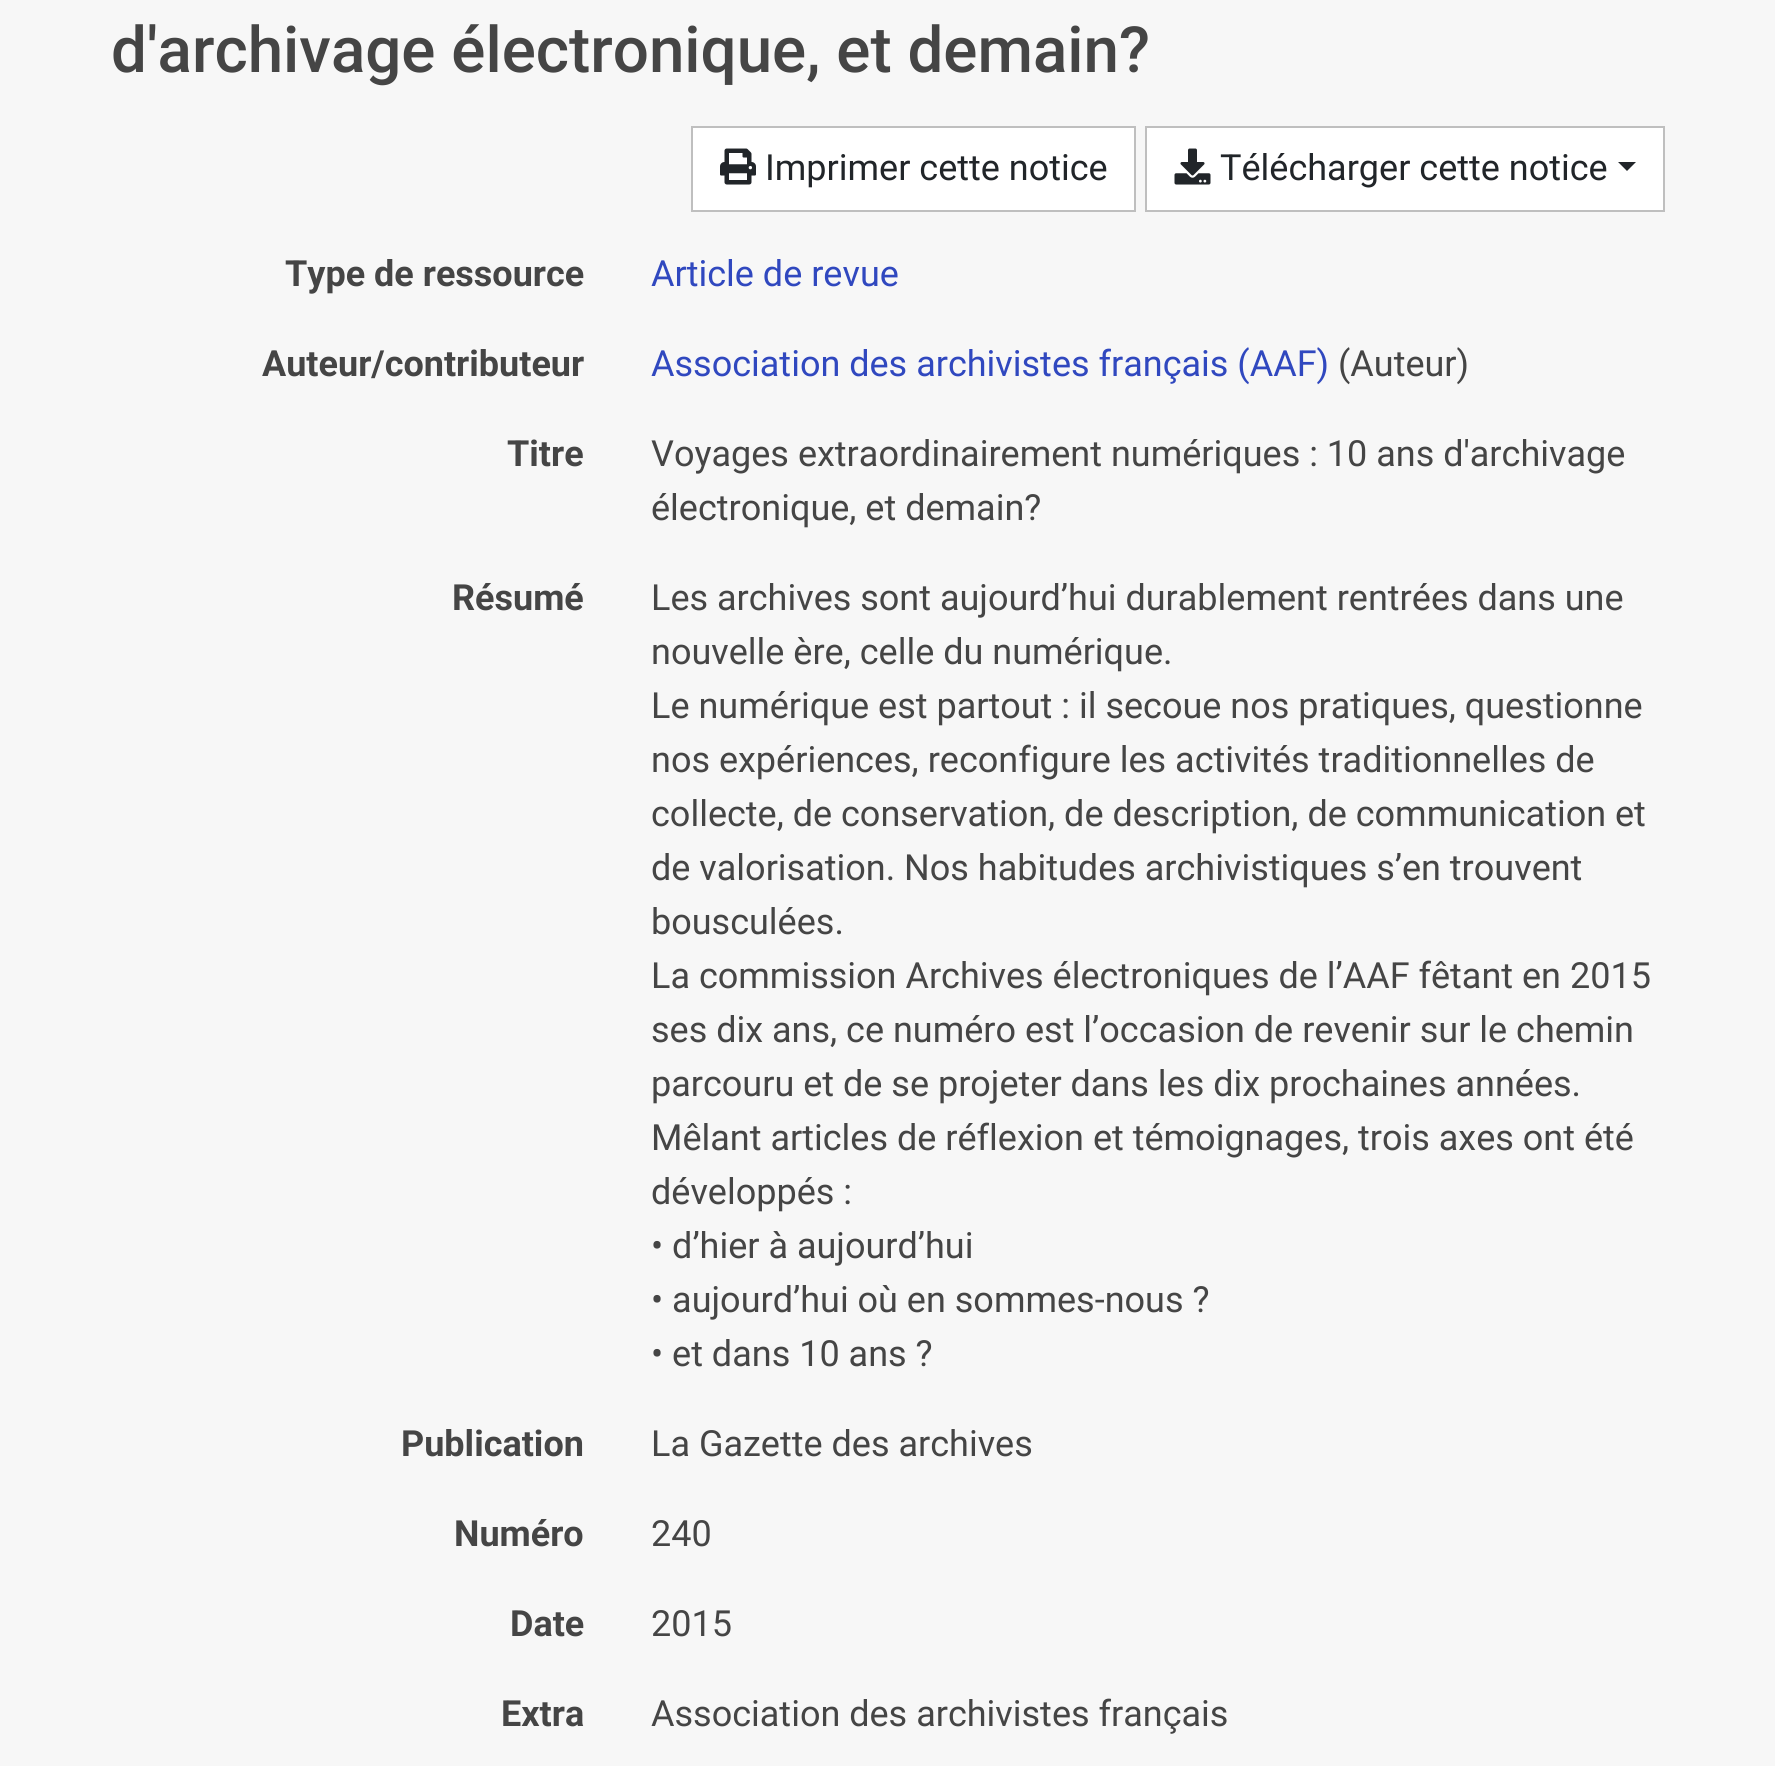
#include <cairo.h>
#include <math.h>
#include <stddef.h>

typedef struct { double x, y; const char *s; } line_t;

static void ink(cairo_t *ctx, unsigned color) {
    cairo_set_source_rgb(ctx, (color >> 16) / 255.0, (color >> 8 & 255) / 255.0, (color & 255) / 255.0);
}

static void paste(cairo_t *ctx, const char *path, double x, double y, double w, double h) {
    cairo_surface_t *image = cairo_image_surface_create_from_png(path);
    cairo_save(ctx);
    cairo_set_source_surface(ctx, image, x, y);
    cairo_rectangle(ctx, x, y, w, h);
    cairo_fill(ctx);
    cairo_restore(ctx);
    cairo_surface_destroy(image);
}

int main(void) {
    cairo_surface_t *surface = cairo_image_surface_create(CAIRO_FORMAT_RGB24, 1775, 1766);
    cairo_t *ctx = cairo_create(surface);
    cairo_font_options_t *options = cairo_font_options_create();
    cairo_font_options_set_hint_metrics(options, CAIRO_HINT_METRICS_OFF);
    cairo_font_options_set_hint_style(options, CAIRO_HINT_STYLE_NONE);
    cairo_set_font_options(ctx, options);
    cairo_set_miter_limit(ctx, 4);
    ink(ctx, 0xF7F7F7);
    cairo_paint(ctx);
    cairo_select_font_face(ctx, "Roboto Medium", CAIRO_FONT_SLANT_NORMAL, CAIRO_FONT_WEIGHT_NORMAL);
    cairo_set_font_size(ctx, 63.7);
    ink(ctx, 0x454545);
    cairo_move_to(ctx, 111, 72);
    cairo_show_text(ctx, "d'archivage électronique, et demain?");
    ink(ctx, 0xFFFFFF);
    cairo_rectangle(ctx, 692, 127, 443, 84);
    cairo_fill_preserve(ctx);
    ink(ctx, 0xBFBFBF);
    cairo_stroke(ctx);
    paste(ctx, "media/1.png", 720, 148, 36, 37);
    cairo_select_font_face(ctx, "Roboto", CAIRO_FONT_SLANT_NORMAL, CAIRO_FONT_WEIGHT_NORMAL);
    cairo_set_font_size(ctx, 36);
    ink(ctx, 0x212529);
    cairo_move_to(ctx, 765, 180);
    cairo_show_text(ctx, "Imprimer cette notice");
    ink(ctx, 0xFFFFFF);
    cairo_rectangle(ctx, 1146, 127, 518, 84);
    cairo_fill_preserve(ctx);
    ink(ctx, 0xBFBFBF);
    cairo_stroke(ctx);
    paste(ctx, "media/2.png", 1174, 148, 37, 37);
    ink(ctx, 0x212529);
    cairo_move_to(ctx, 1220, 180);
    cairo_show_text(ctx, "Télécharger cette notice");
    cairo_new_path(ctx);
    cairo_move_to(ctx, 1618, 162);
    cairo_line_to(ctx, 1636, 162);
    cairo_line_to(ctx, 1627, 171);
    cairo_close_path(ctx);
    cairo_fill(ctx);
    cairo_select_font_face(ctx, "Roboto", CAIRO_FONT_SLANT_NORMAL, CAIRO_FONT_WEIGHT_BOLD);
    ink(ctx, 0x454545);
    cairo_move_to(ctx, 285, 286);
    cairo_show_text(ctx, "Type de ressource");
    cairo_select_font_face(ctx, "Roboto", CAIRO_FONT_SLANT_NORMAL, CAIRO_FONT_WEIGHT_NORMAL);
    ink(ctx, 0x3048BF);
    cairo_move_to(ctx, 651, 286);
    cairo_show_text(ctx, "Article de revue");
    cairo_select_font_face(ctx, "Roboto", CAIRO_FONT_SLANT_NORMAL, CAIRO_FONT_WEIGHT_BOLD);
    ink(ctx, 0x454545);
    cairo_move_to(ctx, 262, 376);
    cairo_show_text(ctx, "Auteur/contributeur");
    cairo_select_font_face(ctx, "Roboto", CAIRO_FONT_SLANT_NORMAL, CAIRO_FONT_WEIGHT_NORMAL);
    ink(ctx, 0x3048BF);
    cairo_move_to(ctx, 651, 376);
    cairo_show_text(ctx, "Association des archivistes français (AAF)");
    ink(ctx, 0x454545);
    cairo_move_to(ctx, 1338, 376);
    cairo_show_text(ctx, "(Auteur)");
    cairo_select_font_face(ctx, "Roboto", CAIRO_FONT_SLANT_NORMAL, CAIRO_FONT_WEIGHT_BOLD);
    cairo_move_to(ctx, 507, 466);
    cairo_show_text(ctx, "Titre");
    cairo_select_font_face(ctx, "Roboto", CAIRO_FONT_SLANT_NORMAL, CAIRO_FONT_WEIGHT_NORMAL);
    cairo_move_to(ctx, 651, 466);
    cairo_show_text(ctx, "Voyages extraordinairement numériques : 10 ans d'archivage");
    cairo_move_to(ctx, 651, 520);
    cairo_show_text(ctx, "électronique, et demain?");
    cairo_select_font_face(ctx, "Roboto", CAIRO_FONT_SLANT_NORMAL, CAIRO_FONT_WEIGHT_BOLD);
    cairo_move_to(ctx, 452, 610);
    cairo_show_text(ctx, "Résumé");
    cairo_select_font_face(ctx, "Roboto", CAIRO_FONT_SLANT_NORMAL, CAIRO_FONT_WEIGHT_NORMAL);
    {
        static const line_t items[] = {
            {651, 610, "Les archives sont aujourd’hui durablement rentrées dans une"},
            {651, 664, "nouvelle ère, celle du numérique."},
            {651, 718, "Le numérique est partout : il secoue nos pratiques, questionne"},
            {651, 772, "nos expériences, reconfigure les activités traditionnelles de"},
            {651, 826, "collecte, de conservation, de description, de communication et"},
            {651, 880, "de valorisation. Nos habitudes archivistiques s’en trouvent"},
            {651, 934, "bousculées."},
            {651, 988, "La commission Archives électroniques de l’AAF fêtant en 2015"},
            {651, 1042, "ses dix ans, ce numéro est l’occasion de revenir sur le chemin"},
            {651, 1096, "parcouru et de se projeter dans les dix prochaines années."},
            {651, 1150, "Mêlant articles de réflexion et témoignages, trois axes ont été"},
            {651, 1204, "développés :"},
            {651, 1258, "• d’hier à aujourd’hui"},
            {651, 1312, "• aujourd’hui où en sommes-nous ?"},
            {651, 1366, "• et dans 10 ans ?"},
        };
        for (size_t i = 0; i < sizeof items / sizeof *items; i++) {
            cairo_move_to(ctx, items[i].x, items[i].y);
            cairo_show_text(ctx, items[i].s);
        }
    }
    cairo_select_font_face(ctx, "Roboto", CAIRO_FONT_SLANT_NORMAL, CAIRO_FONT_WEIGHT_BOLD);
    cairo_move_to(ctx, 401, 1456);
    cairo_show_text(ctx, "Publication");
    cairo_select_font_face(ctx, "Roboto", CAIRO_FONT_SLANT_NORMAL, CAIRO_FONT_WEIGHT_NORMAL);
    cairo_move_to(ctx, 651, 1456);
    cairo_show_text(ctx, "La Gazette des archives");
    cairo_select_font_face(ctx, "Roboto", CAIRO_FONT_SLANT_NORMAL, CAIRO_FONT_WEIGHT_BOLD);
    cairo_move_to(ctx, 454, 1546);
    cairo_show_text(ctx, "Numéro");
    cairo_select_font_face(ctx, "Roboto", CAIRO_FONT_SLANT_NORMAL, CAIRO_FONT_WEIGHT_NORMAL);
    cairo_move_to(ctx, 651, 1546);
    cairo_show_text(ctx, "240");
    cairo_select_font_face(ctx, "Roboto", CAIRO_FONT_SLANT_NORMAL, CAIRO_FONT_WEIGHT_BOLD);
    cairo_move_to(ctx, 510, 1636);
    cairo_show_text(ctx, "Date");
    cairo_select_font_face(ctx, "Roboto", CAIRO_FONT_SLANT_NORMAL, CAIRO_FONT_WEIGHT_NORMAL);
    cairo_move_to(ctx, 651, 1636);
    cairo_show_text(ctx, "2015");
    cairo_select_font_face(ctx, "Roboto", CAIRO_FONT_SLANT_NORMAL, CAIRO_FONT_WEIGHT_BOLD);
    cairo_move_to(ctx, 501, 1726);
    cairo_show_text(ctx, "Extra");
    cairo_select_font_face(ctx, "Roboto", CAIRO_FONT_SLANT_NORMAL, CAIRO_FONT_WEIGHT_NORMAL);
    cairo_move_to(ctx, 651, 1726);
    cairo_show_text(ctx, "Association des archivistes français");
    cairo_surface_write_to_png(surface, "image.png");
    cairo_font_options_destroy(options);
    cairo_destroy(ctx);
    cairo_surface_destroy(surface);
    return 0;
}
